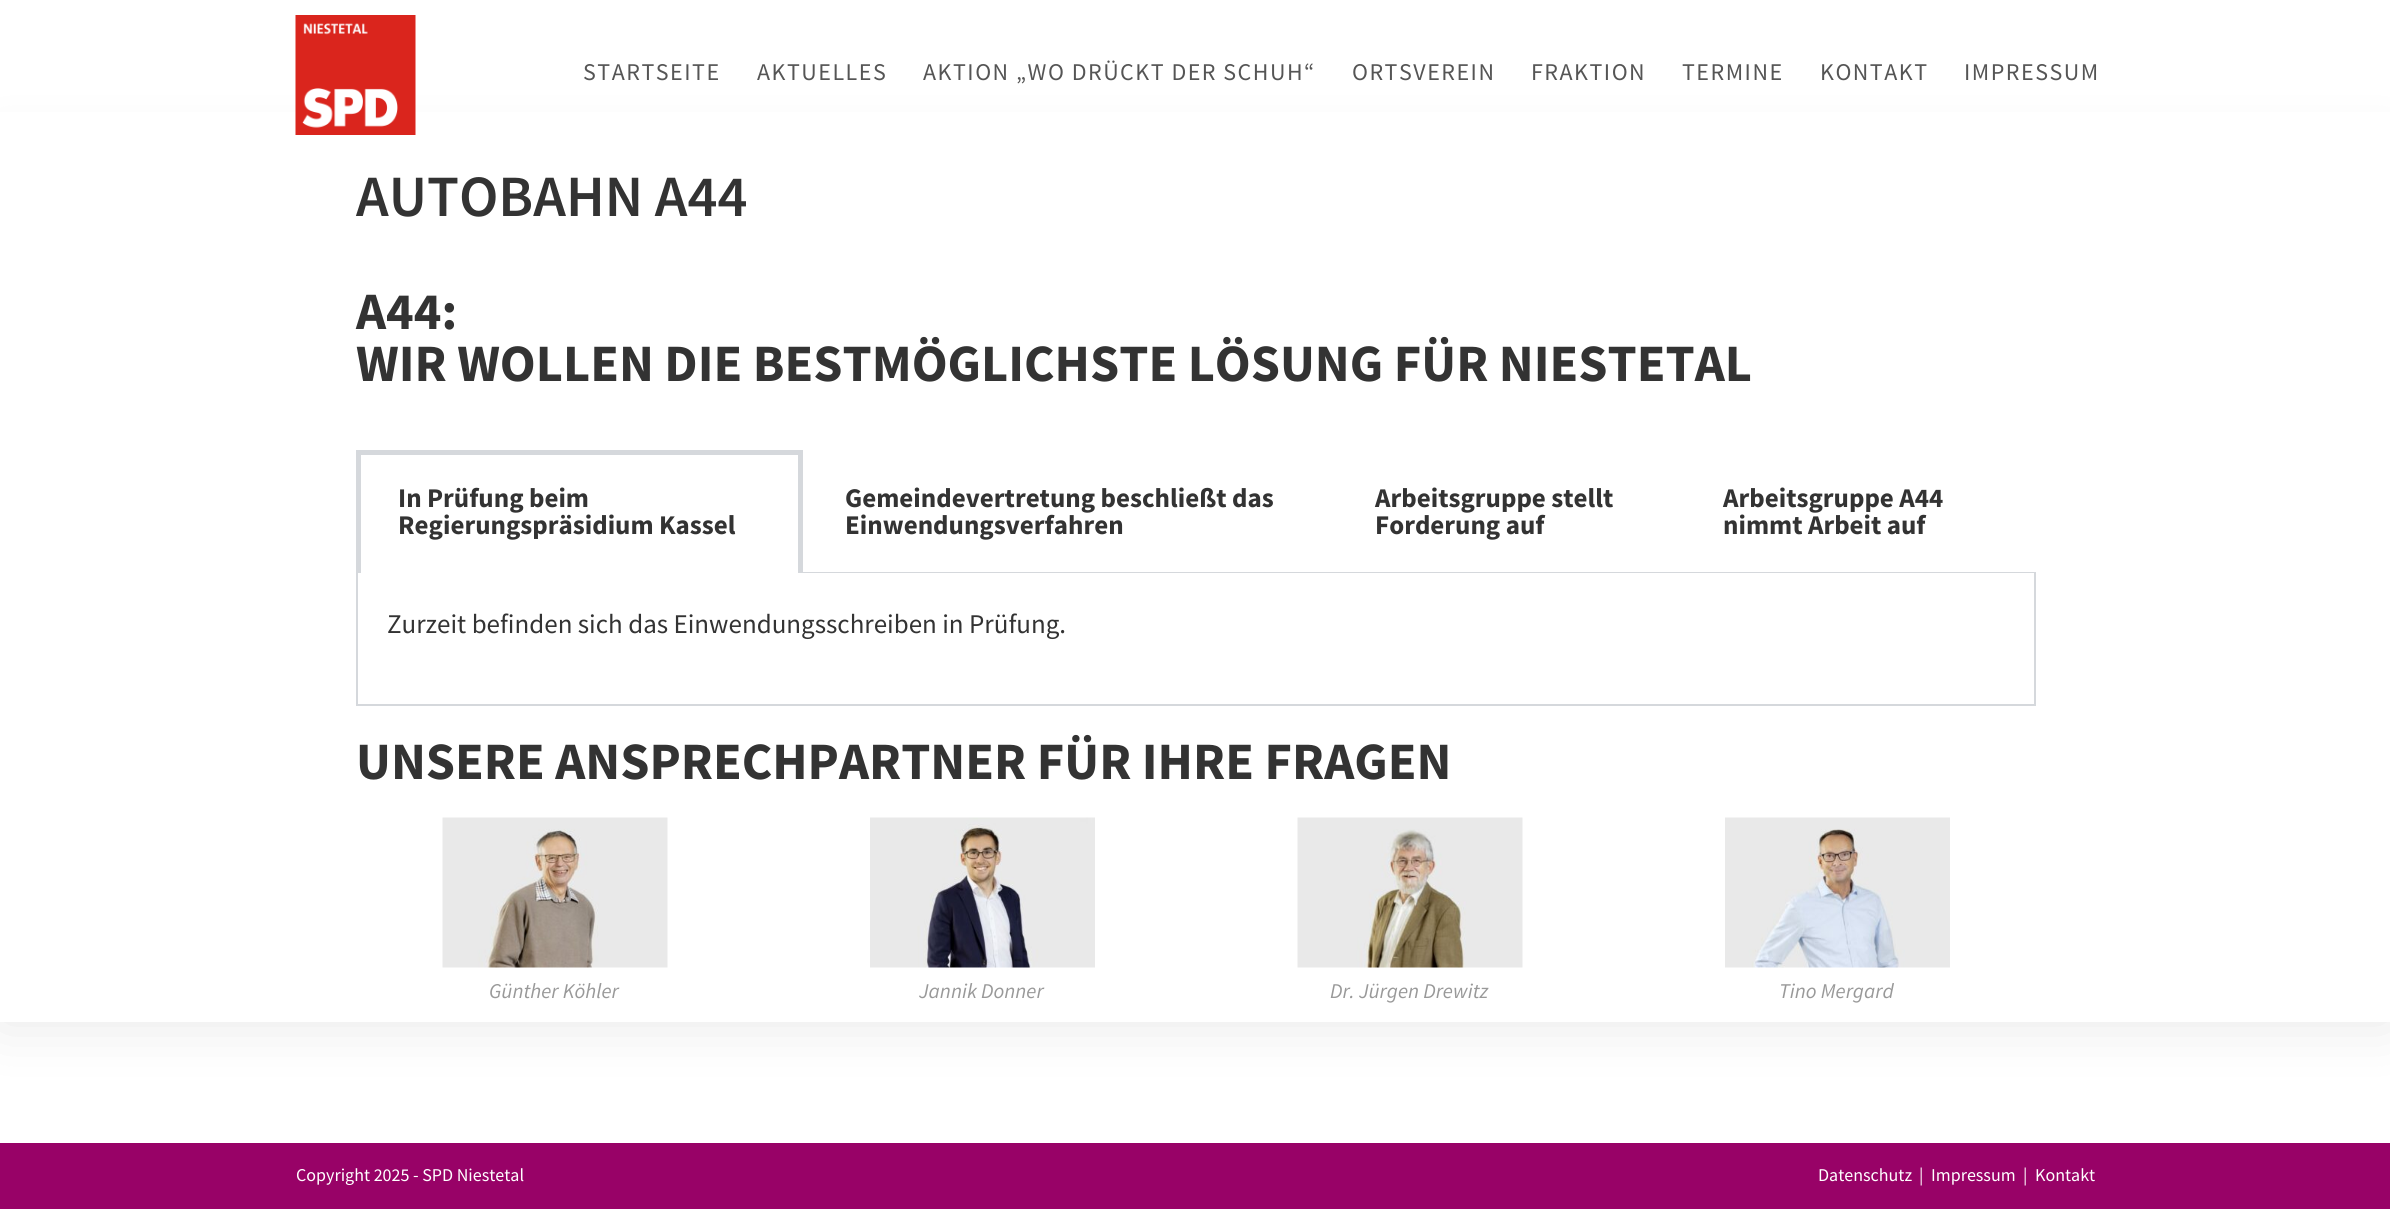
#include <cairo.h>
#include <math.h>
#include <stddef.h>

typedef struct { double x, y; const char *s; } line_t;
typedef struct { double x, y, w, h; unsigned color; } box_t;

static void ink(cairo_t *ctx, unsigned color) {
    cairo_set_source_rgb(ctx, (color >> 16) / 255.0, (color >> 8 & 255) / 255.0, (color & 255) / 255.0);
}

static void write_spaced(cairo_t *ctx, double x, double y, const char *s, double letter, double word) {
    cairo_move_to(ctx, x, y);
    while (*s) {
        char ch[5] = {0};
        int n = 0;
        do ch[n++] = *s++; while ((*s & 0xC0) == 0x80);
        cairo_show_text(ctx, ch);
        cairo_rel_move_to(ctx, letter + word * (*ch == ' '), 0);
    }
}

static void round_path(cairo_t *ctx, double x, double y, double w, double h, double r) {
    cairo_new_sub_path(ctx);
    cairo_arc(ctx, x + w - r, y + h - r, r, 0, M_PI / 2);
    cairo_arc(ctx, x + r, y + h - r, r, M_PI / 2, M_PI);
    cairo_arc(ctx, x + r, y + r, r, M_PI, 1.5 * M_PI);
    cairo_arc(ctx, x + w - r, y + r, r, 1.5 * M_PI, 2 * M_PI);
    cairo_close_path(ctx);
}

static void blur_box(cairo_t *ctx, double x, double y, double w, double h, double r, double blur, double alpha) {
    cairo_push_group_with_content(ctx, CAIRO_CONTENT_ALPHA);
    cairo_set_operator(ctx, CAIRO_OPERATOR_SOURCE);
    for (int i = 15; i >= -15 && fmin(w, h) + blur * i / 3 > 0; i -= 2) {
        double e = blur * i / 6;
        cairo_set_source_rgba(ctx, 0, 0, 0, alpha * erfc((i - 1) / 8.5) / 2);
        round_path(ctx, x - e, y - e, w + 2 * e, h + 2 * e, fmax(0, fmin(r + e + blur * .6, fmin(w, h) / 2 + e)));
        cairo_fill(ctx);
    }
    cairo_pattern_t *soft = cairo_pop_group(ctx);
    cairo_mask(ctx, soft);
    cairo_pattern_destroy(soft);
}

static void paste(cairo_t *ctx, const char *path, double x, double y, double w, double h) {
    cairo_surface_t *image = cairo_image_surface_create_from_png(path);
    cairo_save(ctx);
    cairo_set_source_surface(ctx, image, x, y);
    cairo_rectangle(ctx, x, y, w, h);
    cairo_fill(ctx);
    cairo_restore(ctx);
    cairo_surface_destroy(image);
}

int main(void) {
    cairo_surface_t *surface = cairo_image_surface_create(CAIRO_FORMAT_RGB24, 2390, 1209);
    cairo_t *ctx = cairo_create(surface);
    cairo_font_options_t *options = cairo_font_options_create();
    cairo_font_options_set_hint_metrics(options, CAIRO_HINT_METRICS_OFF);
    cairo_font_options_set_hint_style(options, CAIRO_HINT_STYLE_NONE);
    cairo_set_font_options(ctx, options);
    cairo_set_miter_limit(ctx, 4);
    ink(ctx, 0xFFFFFF);
    cairo_paint(ctx);
    ink(ctx, 0x000000);
    blur_box(ctx, 0, 150, 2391, 872, 0, 30, 0.1);
    ink(ctx, 0xFFFFFF);
    cairo_rectangle(ctx, 0, 112, 2390, 910);
    cairo_fill(ctx);
    paste(ctx, "media/1.png", 295, 15, 121, 120);
    cairo_select_font_face(ctx, "Source Sans Pro", CAIRO_FONT_SLANT_NORMAL, CAIRO_FONT_WEIGHT_NORMAL);
    cairo_set_font_size(ctx, 24);
    ink(ctx, 0x555555);
    {
        static const line_t items[] = {
            {583, 80, "STARTSEITE"},
            {757, 80, "AKTUELLES"},
            {923, 80, "AKTION „WO DRÜCKT DER SCHUH“"},
            {1352, 80, "ORTSVEREIN"},
            {1531, 80, "FRAKTION"},
            {1682, 80, "TERMINE"},
            {1820, 80, "KONTAKT"},
            {1964, 80, "IMPRESSUM"},
        };
        for (size_t i = 0; i < sizeof items / sizeof *items; i++) {
            write_spaced(ctx, items[i].x, items[i].y, items[i].s, 1.5, 0);
        }
    }
    cairo_select_font_face(ctx, "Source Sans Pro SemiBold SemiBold", CAIRO_FONT_SLANT_NORMAL, CAIRO_FONT_WEIGHT_NORMAL);
    cairo_set_font_size(ctx, 58.5);
    ink(ctx, 0x333333);
    cairo_move_to(ctx, 356, 216);
    cairo_show_text(ctx, "AUTOBAHN A44");
    cairo_select_font_face(ctx, "Source Sans Pro", CAIRO_FONT_SLANT_NORMAL, CAIRO_FONT_WEIGHT_BOLD);
    cairo_set_font_size(ctx, 52.5);
    cairo_move_to(ctx, 356, 329);
    cairo_show_text(ctx, "A44:");
    cairo_move_to(ctx, 356, 381);
    cairo_show_text(ctx, "WIR WOLLEN DIE BESTMÖGLICHSTE LÖSUNG FÜR NIESTETAL");
    {
        static const box_t items[] = {
            {356, 450, 447, 5, 0xD5D8DC},
            {798, 450, 5, 123, 0xD5D8DC},
            {356, 450, 5, 123, 0xD5D8DC},
        };
        for (size_t i = 0; i < sizeof items / sizeof *items; i++) {
            ink(ctx, items[i].color);
            cairo_rectangle(ctx, items[i].x, items[i].y, items[i].w, items[i].h);
            cairo_fill(ctx);
        }
    }
    cairo_set_font_size(ctx, 27);
    ink(ctx, 0x333333);
    cairo_move_to(ctx, 398, 507);
    cairo_show_text(ctx, "In Prüfung beim");
    cairo_move_to(ctx, 398, 534);
    cairo_show_text(ctx, "Regierungspräsidium Kassel");
    ink(ctx, 0xD5D8DC);
    cairo_rectangle(ctx, 798, 572, 1238, 1);
    cairo_fill(ctx);
    ink(ctx, 0x333333);
    {
        static const line_t items[] = {
            {845, 507, "Gemeindevertretung beschließt das"},
            {845, 534, "Einwendungsverfahren"},
            {1375, 507, "Arbeitsgruppe stellt"},
            {1375, 534, "Forderung auf"},
            {1723, 507, "Arbeitsgruppe A44"},
            {1723, 534, "nimmt Arbeit auf"},
        };
        for (size_t i = 0; i < sizeof items / sizeof *items; i++) {
            cairo_move_to(ctx, items[i].x, items[i].y);
            cairo_show_text(ctx, items[i].s);
        }
    }
    {
        static const box_t items[] = {
            {2034, 573, 2, 132, 0xD5D8DC},
            {356, 704, 1680, 2, 0xD5D8DC},
            {356, 573, 2, 132, 0xD5D8DC},
        };
        for (size_t i = 0; i < sizeof items / sizeof *items; i++) {
            ink(ctx, items[i].color);
            cairo_rectangle(ctx, items[i].x, items[i].y, items[i].w, items[i].h);
            cairo_fill(ctx);
        }
    }
    cairo_select_font_face(ctx, "Source Sans Pro", CAIRO_FONT_SLANT_NORMAL, CAIRO_FONT_WEIGHT_NORMAL);
    ink(ctx, 0x333333);
    cairo_move_to(ctx, 387, 633);
    cairo_show_text(ctx, "Zurzeit befinden sich das Einwendungsschreiben in Prüfung.");
    cairo_select_font_face(ctx, "Source Sans Pro", CAIRO_FONT_SLANT_NORMAL, CAIRO_FONT_WEIGHT_BOLD);
    cairo_set_font_size(ctx, 52.5);
    cairo_move_to(ctx, 356, 779);
    cairo_show_text(ctx, "UNSERE ANSPRECHPARTNER FÜR IHRE FRAGEN");
    paste(ctx, "media/2.png", 442, 817, 226, 151);
    cairo_select_font_face(ctx, "Source Sans Pro", CAIRO_FONT_SLANT_ITALIC, CAIRO_FONT_WEIGHT_NORMAL);
    cairo_set_font_size(ctx, 21);
    ink(ctx, 0x999999);
    cairo_move_to(ctx, 489, 998);
    cairo_show_text(ctx, "Günther Köhler");
    paste(ctx, "media/3.png", 870, 817, 225, 151);
    cairo_move_to(ctx, 919, 998);
    cairo_show_text(ctx, "Jannik Donner");
    paste(ctx, "media/4.png", 1297, 817, 226, 151);
    cairo_move_to(ctx, 1330, 998);
    cairo_show_text(ctx, "Dr. Jürgen Drewitz");
    paste(ctx, "media/5.png", 1725, 817, 225, 151);
    cairo_move_to(ctx, 1779, 998);
    cairo_show_text(ctx, "Tino Mergard");
    ink(ctx, 0x980267);
    cairo_rectangle(ctx, 0, 1143, 2390, 66);
    cairo_fill(ctx);
    cairo_select_font_face(ctx, "Source Sans Pro", CAIRO_FONT_SLANT_NORMAL, CAIRO_FONT_WEIGHT_NORMAL);
    cairo_set_font_size(ctx, 18);
    ink(ctx, 0xFFFFFF);
    {
        static const line_t items[] = {
            {296, 1181, "Copyright 2025 - SPD Niestetal"},
            {1818, 1181, "Datenschutz"},
            {1919, 1181, "|"},
            {1931, 1181, "Impressum"},
            {2023, 1181, "|"},
            {2035, 1181, "Kontakt"},
        };
        for (size_t i = 0; i < sizeof items / sizeof *items; i++) {
            cairo_move_to(ctx, items[i].x, items[i].y);
            cairo_show_text(ctx, items[i].s);
        }
    }
    cairo_surface_write_to_png(surface, "image.png");
    cairo_font_options_destroy(options);
    cairo_destroy(ctx);
    cairo_surface_destroy(surface);
    return 0;
}
